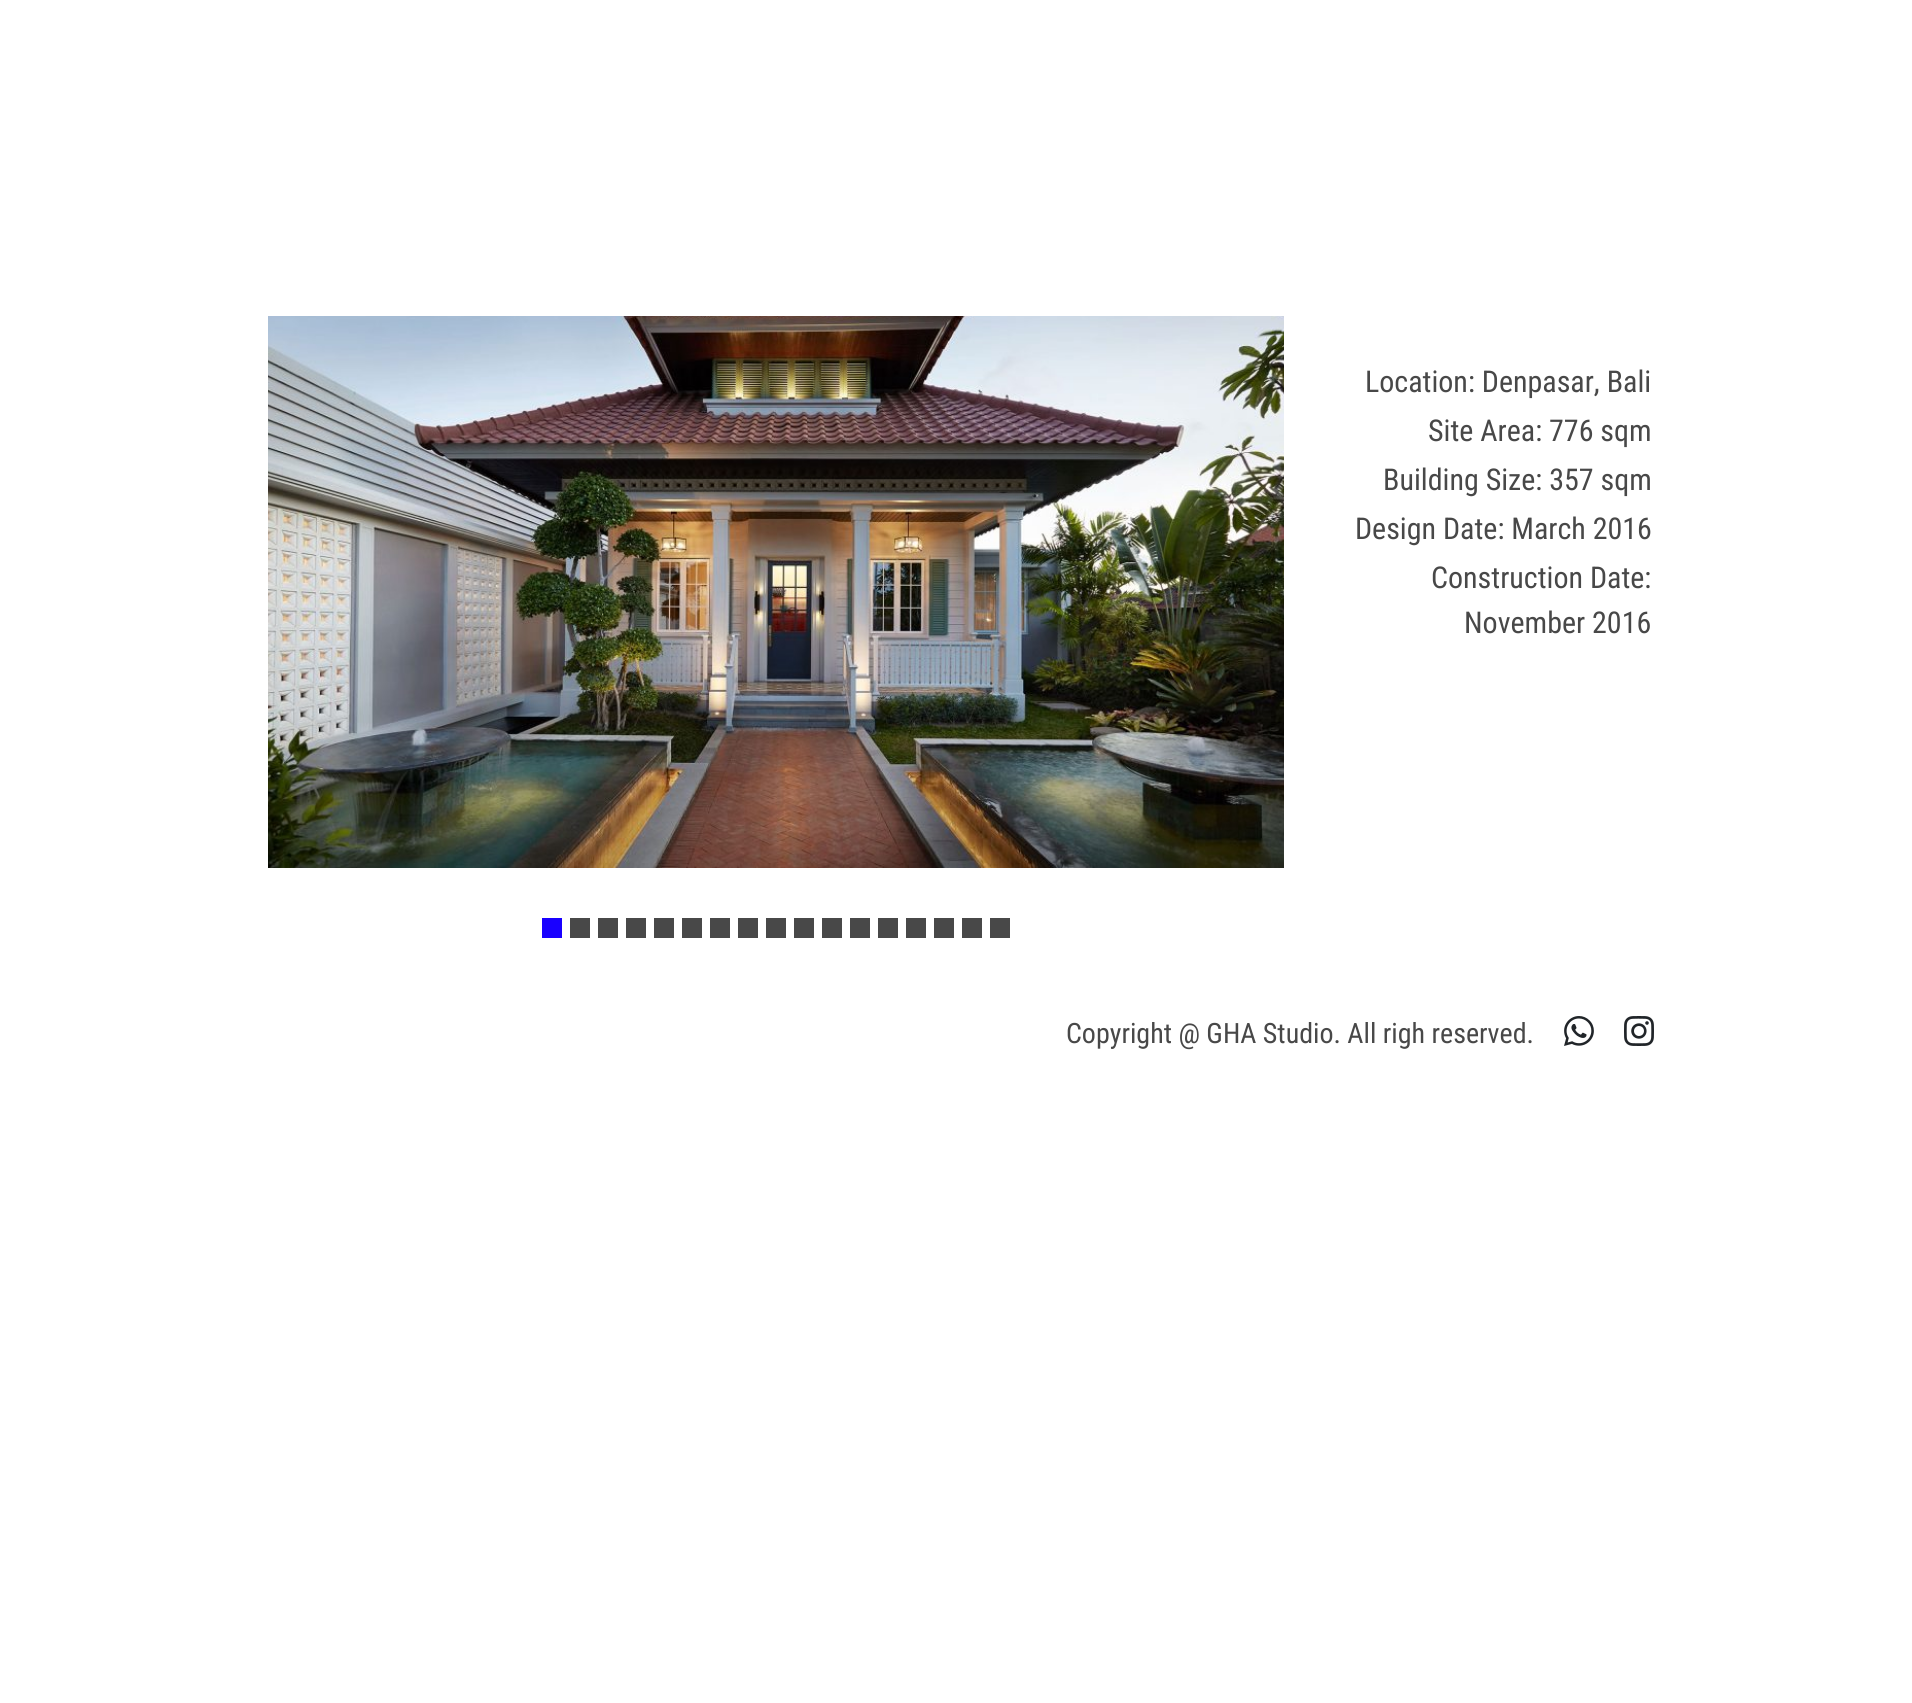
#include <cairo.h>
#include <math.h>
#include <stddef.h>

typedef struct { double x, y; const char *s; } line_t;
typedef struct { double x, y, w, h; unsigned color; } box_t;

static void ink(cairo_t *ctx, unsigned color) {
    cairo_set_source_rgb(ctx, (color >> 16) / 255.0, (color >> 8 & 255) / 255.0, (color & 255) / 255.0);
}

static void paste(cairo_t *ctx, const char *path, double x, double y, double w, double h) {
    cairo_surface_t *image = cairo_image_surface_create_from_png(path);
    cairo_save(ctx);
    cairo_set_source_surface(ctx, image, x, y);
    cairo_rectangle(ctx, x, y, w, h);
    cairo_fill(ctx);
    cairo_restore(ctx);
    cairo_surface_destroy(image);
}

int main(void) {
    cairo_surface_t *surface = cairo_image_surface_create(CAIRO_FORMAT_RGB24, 1912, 1703);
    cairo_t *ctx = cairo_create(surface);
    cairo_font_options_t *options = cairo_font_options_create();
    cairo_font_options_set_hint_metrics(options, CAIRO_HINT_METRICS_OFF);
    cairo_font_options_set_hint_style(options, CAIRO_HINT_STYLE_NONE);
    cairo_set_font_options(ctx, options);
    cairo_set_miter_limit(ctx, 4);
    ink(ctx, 0xFFFFFF);
    cairo_paint(ctx);
    paste(ctx, "media/1.png", 268, 316, 1016, 552);
    {
        static const box_t items[] = {
            {542, 918, 20, 20, 0x1900FF},
            {570, 918, 20, 20, 0x484848},
            {598, 918, 20, 20, 0x484848},
            {626, 918, 20, 20, 0x484848},
            {654, 918, 20, 20, 0x484848},
            {682, 918, 20, 20, 0x484848},
            {710, 918, 20, 20, 0x484848},
            {738, 918, 20, 20, 0x484848},
            {766, 918, 20, 20, 0x484848},
            {794, 918, 20, 20, 0x484848},
            {822, 918, 20, 20, 0x484848},
            {850, 918, 20, 20, 0x484848},
            {878, 918, 20, 20, 0x484848},
            {906, 918, 20, 20, 0x484848},
            {934, 918, 20, 20, 0x484848},
            {962, 918, 20, 20, 0x484848},
            {990, 918, 20, 20, 0x484848},
        };
        for (size_t i = 0; i < sizeof items / sizeof *items; i++) {
            ink(ctx, items[i].color);
            cairo_rectangle(ctx, items[i].x, items[i].y, items[i].w, items[i].h);
            cairo_fill(ctx);
        }
    }
    cairo_select_font_face(ctx, "Roboto Condensed", CAIRO_FONT_SLANT_NORMAL, CAIRO_FONT_WEIGHT_NORMAL);
    cairo_set_font_size(ctx, 30);
    {
        static const line_t items[] = {
            {1365, 392, "Location: Denpasar, Bali"},
            {1428, 441, "Site Area: 776 sqm"},
            {1383, 490, "Building Size: 357 sqm"},
            {1355, 539, "Design Date: March 2016"},
            {1431, 588, "Construction Date:"},
            {1464, 633, "November 2016"},
        };
        for (size_t i = 0; i < sizeof items / sizeof *items; i++) {
            cairo_move_to(ctx, items[i].x, items[i].y);
            cairo_show_text(ctx, items[i].s);
        }
    }
    cairo_set_font_size(ctx, 28);
    cairo_move_to(ctx, 1066, 1043);
    cairo_show_text(ctx, "Copyright @ GHA Studio. All righ reserved.");
    paste(ctx, "media/2.png", 1564, 1016, 30, 30);
    paste(ctx, "media/3.png", 1624, 1016, 30, 30);
    cairo_surface_write_to_png(surface, "image.png");
    cairo_font_options_destroy(options);
    cairo_destroy(ctx);
    cairo_surface_destroy(surface);
    return 0;
}
